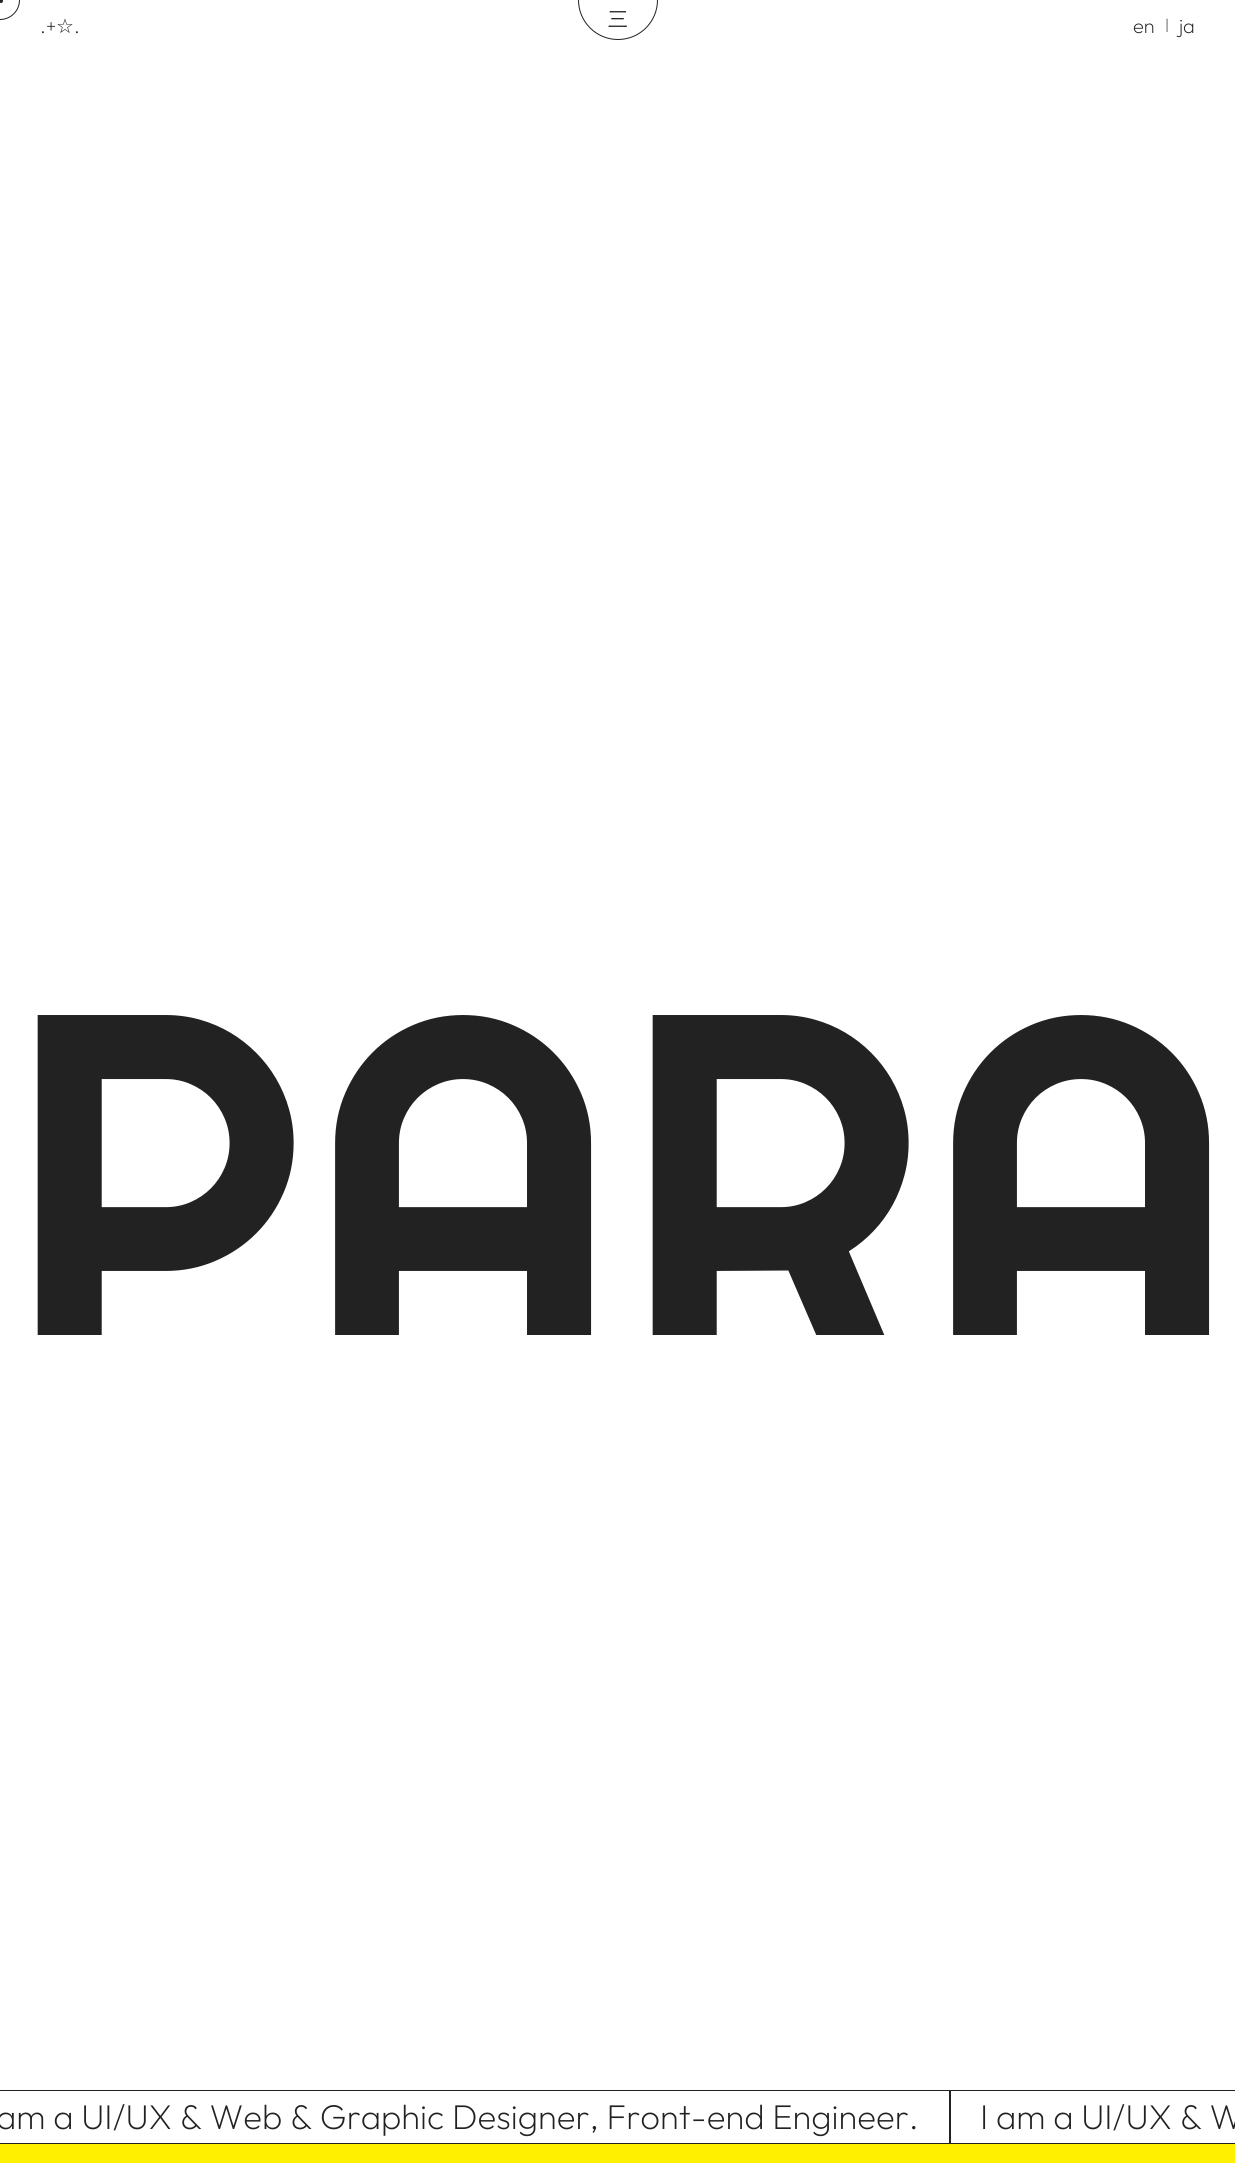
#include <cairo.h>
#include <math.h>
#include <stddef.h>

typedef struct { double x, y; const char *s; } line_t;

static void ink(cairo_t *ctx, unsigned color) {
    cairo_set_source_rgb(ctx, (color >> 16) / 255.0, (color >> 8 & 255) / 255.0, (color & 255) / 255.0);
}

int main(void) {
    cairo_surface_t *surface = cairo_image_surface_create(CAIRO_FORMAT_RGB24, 1235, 2163);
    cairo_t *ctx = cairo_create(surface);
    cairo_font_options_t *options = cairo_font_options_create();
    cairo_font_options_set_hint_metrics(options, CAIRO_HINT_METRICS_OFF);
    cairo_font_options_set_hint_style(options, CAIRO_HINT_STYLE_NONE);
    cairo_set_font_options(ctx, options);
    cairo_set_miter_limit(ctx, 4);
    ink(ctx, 0xFFFFFF);
    cairo_paint(ctx);
    ink(ctx, 0x222222);
    cairo_arc(ctx, 1, 1, 2, 0, 2 * M_PI);
    cairo_fill(ctx);
    cairo_arc(ctx, 0, 0, 19.5, 0, 2 * M_PI);
    cairo_set_line_width(ctx, 1);
    cairo_stroke(ctx);
    cairo_select_font_face(ctx, "Outfit ExtraLight", CAIRO_FONT_SLANT_NORMAL, CAIRO_FONT_WEIGHT_NORMAL);
    cairo_set_font_size(ctx, 20);
    cairo_move_to(ctx, 40, 33);
    cairo_show_text(ctx, ".+");
    cairo_select_font_face(ctx, "DejaVu Sans", CAIRO_FONT_SLANT_NORMAL, CAIRO_FONT_WEIGHT_NORMAL);
    cairo_move_to(ctx, 56, 33);
    cairo_show_text(ctx, "☆");
    cairo_select_font_face(ctx, "Outfit ExtraLight", CAIRO_FONT_SLANT_NORMAL, CAIRO_FONT_WEIGHT_NORMAL);
    cairo_move_to(ctx, 74, 33);
    cairo_show_text(ctx, ".");
    cairo_new_path(ctx);
    cairo_arc(ctx, 618, 0, 39.5, 0, 2 * M_PI);
    cairo_stroke(ctx);
    cairo_select_font_face(ctx, "WenQuanYi Zen Hei Medium", CAIRO_FONT_SLANT_NORMAL, CAIRO_FONT_WEIGHT_NORMAL);
    cairo_move_to(ctx, 608, 26);
    cairo_show_text(ctx, "三");
    cairo_select_font_face(ctx, "Outfit ExtraLight", CAIRO_FONT_SLANT_NORMAL, CAIRO_FONT_WEIGHT_NORMAL);
    cairo_move_to(ctx, 1133, 33);
    cairo_show_text(ctx, "en");
    cairo_set_font_size(ctx, 15);
    cairo_move_to(ctx, 1165, 30);
    cairo_show_text(ctx, "|");
    cairo_set_font_size(ctx, 20);
    cairo_move_to(ctx, 1179, 33);
    cairo_show_text(ctx, "ja");
    cairo_select_font_face(ctx, "Righteous", CAIRO_FONT_SLANT_NORMAL, CAIRO_FONT_WEIGHT_NORMAL);
    cairo_set_font_size(ctx, 457);
    {
        static const line_t items[] = {
            {8, 1335, "P"},
            {309, 1335, "A"},
            {623, 1335, "R"},
            {927, 1335, "A"},
        };
        for (size_t i = 0; i < sizeof items / sizeof *items; i++) {
            cairo_move_to(ctx, items[i].x, items[i].y);
            cairo_show_text(ctx, items[i].s);
        }
    }
    cairo_rectangle(ctx, -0.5, 2090.5, 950, 53);
    cairo_stroke(ctx);
    cairo_select_font_face(ctx, "Outfit ExtraLight", CAIRO_FONT_SLANT_NORMAL, CAIRO_FONT_WEIGHT_NORMAL);
    cairo_set_font_size(ctx, 34.6);
    cairo_move_to(ctx, -4, 2129);
    cairo_show_text(ctx, "am a UI/UX & Web & Graphic Designer, Front-end Engineer.");
    cairo_rectangle(ctx, 950.5, 2090.5, 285, 53);
    cairo_stroke(ctx);
    cairo_move_to(ctx, 980, 2129);
    cairo_show_text(ctx, "I am a UI/UX & W");
    ink(ctx, 0xFFF000);
    cairo_rectangle(ctx, 0, 2144, 1235, 19);
    cairo_fill(ctx);
    cairo_surface_write_to_png(surface, "image.png");
    cairo_font_options_destroy(options);
    cairo_destroy(ctx);
    cairo_surface_destroy(surface);
    return 0;
}
